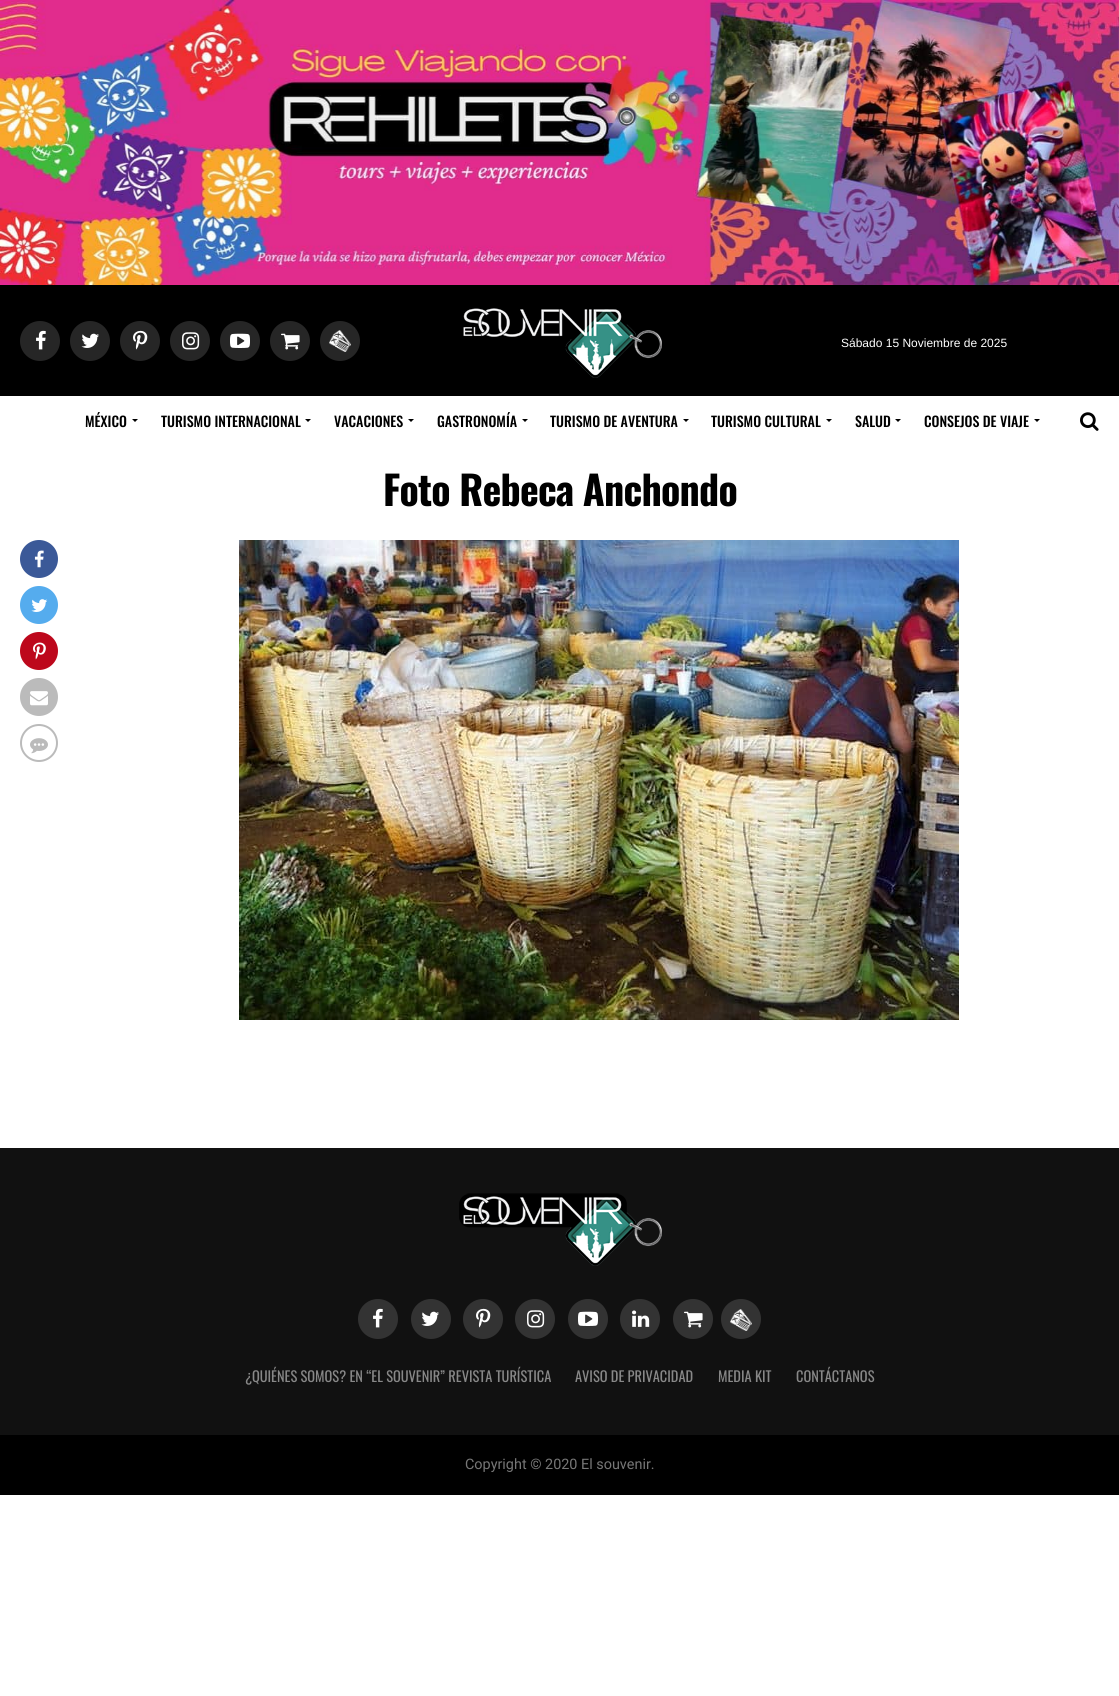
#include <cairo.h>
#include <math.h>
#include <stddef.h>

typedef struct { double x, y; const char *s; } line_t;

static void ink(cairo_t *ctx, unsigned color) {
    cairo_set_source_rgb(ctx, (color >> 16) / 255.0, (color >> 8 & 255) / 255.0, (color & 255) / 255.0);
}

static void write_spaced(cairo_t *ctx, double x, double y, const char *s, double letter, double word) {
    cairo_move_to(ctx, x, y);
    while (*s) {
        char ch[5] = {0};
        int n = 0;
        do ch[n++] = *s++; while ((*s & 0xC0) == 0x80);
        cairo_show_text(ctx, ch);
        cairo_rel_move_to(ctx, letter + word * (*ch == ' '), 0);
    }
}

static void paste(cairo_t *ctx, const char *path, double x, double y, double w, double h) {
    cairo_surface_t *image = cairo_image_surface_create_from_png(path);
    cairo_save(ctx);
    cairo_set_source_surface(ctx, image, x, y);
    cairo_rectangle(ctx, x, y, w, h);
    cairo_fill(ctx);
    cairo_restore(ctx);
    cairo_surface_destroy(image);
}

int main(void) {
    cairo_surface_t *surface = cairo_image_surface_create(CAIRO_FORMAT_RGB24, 1119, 1696);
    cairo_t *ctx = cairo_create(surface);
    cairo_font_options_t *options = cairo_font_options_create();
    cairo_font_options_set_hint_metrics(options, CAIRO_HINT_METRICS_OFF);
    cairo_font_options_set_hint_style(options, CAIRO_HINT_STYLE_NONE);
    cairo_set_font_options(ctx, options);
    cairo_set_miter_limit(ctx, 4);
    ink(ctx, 0xFFFFFF);
    cairo_paint(ctx);
    paste(ctx, "media/1.png", 0, 0, 1119, 285);
    ink(ctx, 0x000000);
    cairo_rectangle(ctx, 0, 285, 1119, 111);
    cairo_fill(ctx);
    ink(ctx, 0x262626);
    cairo_arc(ctx, 40, 341, 20, 0, 2 * M_PI);
    cairo_fill(ctx);
    paste(ctx, "media/2.png", 36, 330, 10, 20);
    cairo_arc(ctx, 90, 341, 20, 0, 2 * M_PI);
    cairo_fill(ctx);
    paste(ctx, "media/3.png", 81, 333, 18, 15);
    cairo_arc(ctx, 140, 341, 20, 0, 2 * M_PI);
    cairo_fill(ctx);
    paste(ctx, "media/4.png", 133, 330, 15, 20);
    cairo_arc(ctx, 190, 341, 20, 0, 2 * M_PI);
    cairo_fill(ctx);
    paste(ctx, "media/5.png", 182, 332, 18, 18);
    cairo_arc(ctx, 240, 341, 20, 0, 2 * M_PI);
    cairo_fill(ctx);
    paste(ctx, "media/6.png", 230, 333, 20, 15);
    cairo_arc(ctx, 290, 341, 20, 0, 2 * M_PI);
    cairo_fill(ctx);
    paste(ctx, "media/7.png", 281, 333, 19, 17);
    cairo_arc(ctx, 340, 341, 20, 0, 2 * M_PI);
    cairo_fill(ctx);
    paste(ctx, "media/8.png", 329, 330, 22, 22);
    paste(ctx, "media/9.png", 463, 308, 199, 70);
    cairo_select_font_face(ctx, "Liberation Sans", CAIRO_FONT_SLANT_NORMAL, CAIRO_FONT_WEIGHT_NORMAL);
    cairo_set_font_size(ctx, 12);
    ink(ctx, 0xFFFFFF);
    cairo_move_to(ctx, 841, 347);
    cairo_show_text(ctx, "Sábado 15 Noviembre de 2025");
    cairo_select_font_face(ctx, "Oswald Medium", CAIRO_FONT_SLANT_NORMAL, CAIRO_FONT_WEIGHT_NORMAL);
    cairo_set_font_size(ctx, 14);
    ink(ctx, 0x000000);
    cairo_move_to(ctx, 85, 427);
    cairo_show_text(ctx, "MÉXICO");
    cairo_new_path(ctx);
    cairo_move_to(ctx, 132, 419);
    cairo_line_to(ctx, 138, 419);
    cairo_line_to(ctx, 135, 422);
    cairo_close_path(ctx);
    cairo_fill(ctx);
    cairo_move_to(ctx, 161, 427);
    cairo_show_text(ctx, "TURISMO INTERNACIONAL");
    cairo_new_path(ctx);
    cairo_move_to(ctx, 305, 419);
    cairo_line_to(ctx, 311, 419);
    cairo_line_to(ctx, 308, 422);
    cairo_close_path(ctx);
    cairo_fill(ctx);
    cairo_move_to(ctx, 334, 427);
    cairo_show_text(ctx, "VACACIONES");
    cairo_new_path(ctx);
    cairo_move_to(ctx, 408, 419);
    cairo_line_to(ctx, 414, 419);
    cairo_line_to(ctx, 411, 422);
    cairo_close_path(ctx);
    cairo_fill(ctx);
    cairo_move_to(ctx, 437, 427);
    cairo_show_text(ctx, "GASTRONOMÍA");
    cairo_new_path(ctx);
    cairo_move_to(ctx, 522, 419);
    cairo_line_to(ctx, 528, 419);
    cairo_line_to(ctx, 525, 422);
    cairo_close_path(ctx);
    cairo_fill(ctx);
    cairo_move_to(ctx, 550, 427);
    cairo_show_text(ctx, "TURISMO DE AVENTURA");
    cairo_new_path(ctx);
    cairo_move_to(ctx, 683, 419);
    cairo_line_to(ctx, 689, 419);
    cairo_line_to(ctx, 686, 422);
    cairo_close_path(ctx);
    cairo_fill(ctx);
    cairo_move_to(ctx, 711, 427);
    cairo_show_text(ctx, "TURISMO CULTURAL");
    cairo_new_path(ctx);
    cairo_move_to(ctx, 826, 419);
    cairo_line_to(ctx, 832, 419);
    cairo_line_to(ctx, 829, 422);
    cairo_close_path(ctx);
    cairo_fill(ctx);
    cairo_move_to(ctx, 855, 427);
    cairo_show_text(ctx, "SALUD");
    cairo_new_path(ctx);
    cairo_move_to(ctx, 895, 419);
    cairo_line_to(ctx, 901, 419);
    cairo_line_to(ctx, 898, 422);
    cairo_close_path(ctx);
    cairo_fill(ctx);
    cairo_move_to(ctx, 924, 427);
    cairo_show_text(ctx, "CONSEJOS DE VIAJE");
    cairo_new_path(ctx);
    cairo_move_to(ctx, 1034, 419);
    cairo_line_to(ctx, 1040, 419);
    cairo_line_to(ctx, 1037, 422);
    cairo_close_path(ctx);
    cairo_fill(ctx);
    paste(ctx, "media/10.png", 1080, 412, 19, 19);
    cairo_select_font_face(ctx, "Oswald", CAIRO_FONT_SLANT_NORMAL, CAIRO_FONT_WEIGHT_BOLD);
    cairo_set_font_size(ctx, 40);
    write_spaced(ctx, 383, 506, "Foto Rebeca Anchondo", -0.8, 0);
    ink(ctx, 0x3B5998);
    cairo_new_path(ctx);
    cairo_arc(ctx, 39, 559, 19, 0, 2 * M_PI);
    cairo_fill(ctx);
    paste(ctx, "media/11.png", 34, 550, 10, 18);
    ink(ctx, 0x55ACEE);
    cairo_arc(ctx, 39, 605, 19, 0, 2 * M_PI);
    cairo_fill(ctx);
    paste(ctx, "media/12.png", 31, 599, 17, 13);
    ink(ctx, 0xBD081C);
    cairo_arc(ctx, 39, 651, 19, 0, 2 * M_PI);
    cairo_fill(ctx);
    paste(ctx, "media/13.png", 33, 642, 13, 18);
    ink(ctx, 0xBBBBBB);
    cairo_arc(ctx, 39, 697, 19, 0, 2 * M_PI);
    cairo_fill(ctx);
    paste(ctx, "media/14.png", 30, 691, 18, 15);
    cairo_arc(ctx, 39, 743, 18, 0, 2 * M_PI);
    cairo_stroke(ctx);
    paste(ctx, "media/15.png", 30, 738, 18, 16);
    paste(ctx, "media/16.png", 239, 540, 720, 480);
    ink(ctx, 0x111111);
    cairo_rectangle(ctx, 0, 1148, 1119, 287);
    cairo_fill(ctx);
    paste(ctx, "media/17.png", 459, 1193, 203, 73);
    ink(ctx, 0x333333);
    cairo_arc(ctx, 378, 1319, 20, 0, 2 * M_PI);
    cairo_fill(ctx);
    paste(ctx, "media/18.png", 373, 1308, 10, 20);
    cairo_arc(ctx, 431, 1319, 20, 0, 2 * M_PI);
    cairo_fill(ctx);
    paste(ctx, "media/19.png", 421, 1311, 18, 15);
    cairo_arc(ctx, 483, 1319, 20, 0, 2 * M_PI);
    cairo_fill(ctx);
    paste(ctx, "media/20.png", 476, 1308, 15, 20);
    cairo_arc(ctx, 535, 1319, 20, 0, 2 * M_PI);
    cairo_fill(ctx);
    paste(ctx, "media/21.png", 527, 1310, 18, 18);
    cairo_arc(ctx, 588, 1319, 20, 0, 2 * M_PI);
    cairo_fill(ctx);
    paste(ctx, "media/22.png", 578, 1311, 20, 15);
    cairo_arc(ctx, 640, 1319, 20, 0, 2 * M_PI);
    cairo_fill(ctx);
    paste(ctx, "media/23.png", 632, 1310, 18, 17);
    cairo_arc(ctx, 693, 1319, 20, 0, 2 * M_PI);
    cairo_fill(ctx);
    paste(ctx, "media/24.png", 684, 1311, 19, 17);
    cairo_arc(ctx, 741, 1319, 20, 0, 2 * M_PI);
    cairo_fill(ctx);
    paste(ctx, "media/25.png", 730, 1309, 22, 22);
    cairo_select_font_face(ctx, "Oswald", CAIRO_FONT_SLANT_NORMAL, CAIRO_FONT_WEIGHT_NORMAL);
    cairo_set_font_size(ctx, 14.4);
    ink(ctx, 0x888888);
    {
        static const line_t items[] = {
            {245, 1382, "¿QUIÉNES SOMOS? EN “EL SOUVENIR” REVISTA TURÍSTICA"},
            {575, 1382, "AVISO DE PRIVACIDAD"},
            {718, 1382, "MEDIA KIT"},
            {796, 1382, "CONTÁCTANOS"},
        };
        for (size_t i = 0; i < sizeof items / sizeof *items; i++) {
            cairo_move_to(ctx, items[i].x, items[i].y);
            cairo_show_text(ctx, items[i].s);
        }
    }
    ink(ctx, 0x000000);
    cairo_rectangle(ctx, 0, 1435, 1119, 60);
    cairo_fill(ctx);
    cairo_select_font_face(ctx, "Roboto", CAIRO_FONT_SLANT_NORMAL, CAIRO_FONT_WEIGHT_NORMAL);
    ink(ctx, 0x777777);
    cairo_move_to(ctx, 465, 1469);
    cairo_show_text(ctx, "Copyright © 2020 El souvenir.");
    cairo_surface_write_to_png(surface, "image.png");
    cairo_font_options_destroy(options);
    cairo_destroy(ctx);
    cairo_surface_destroy(surface);
    return 0;
}
